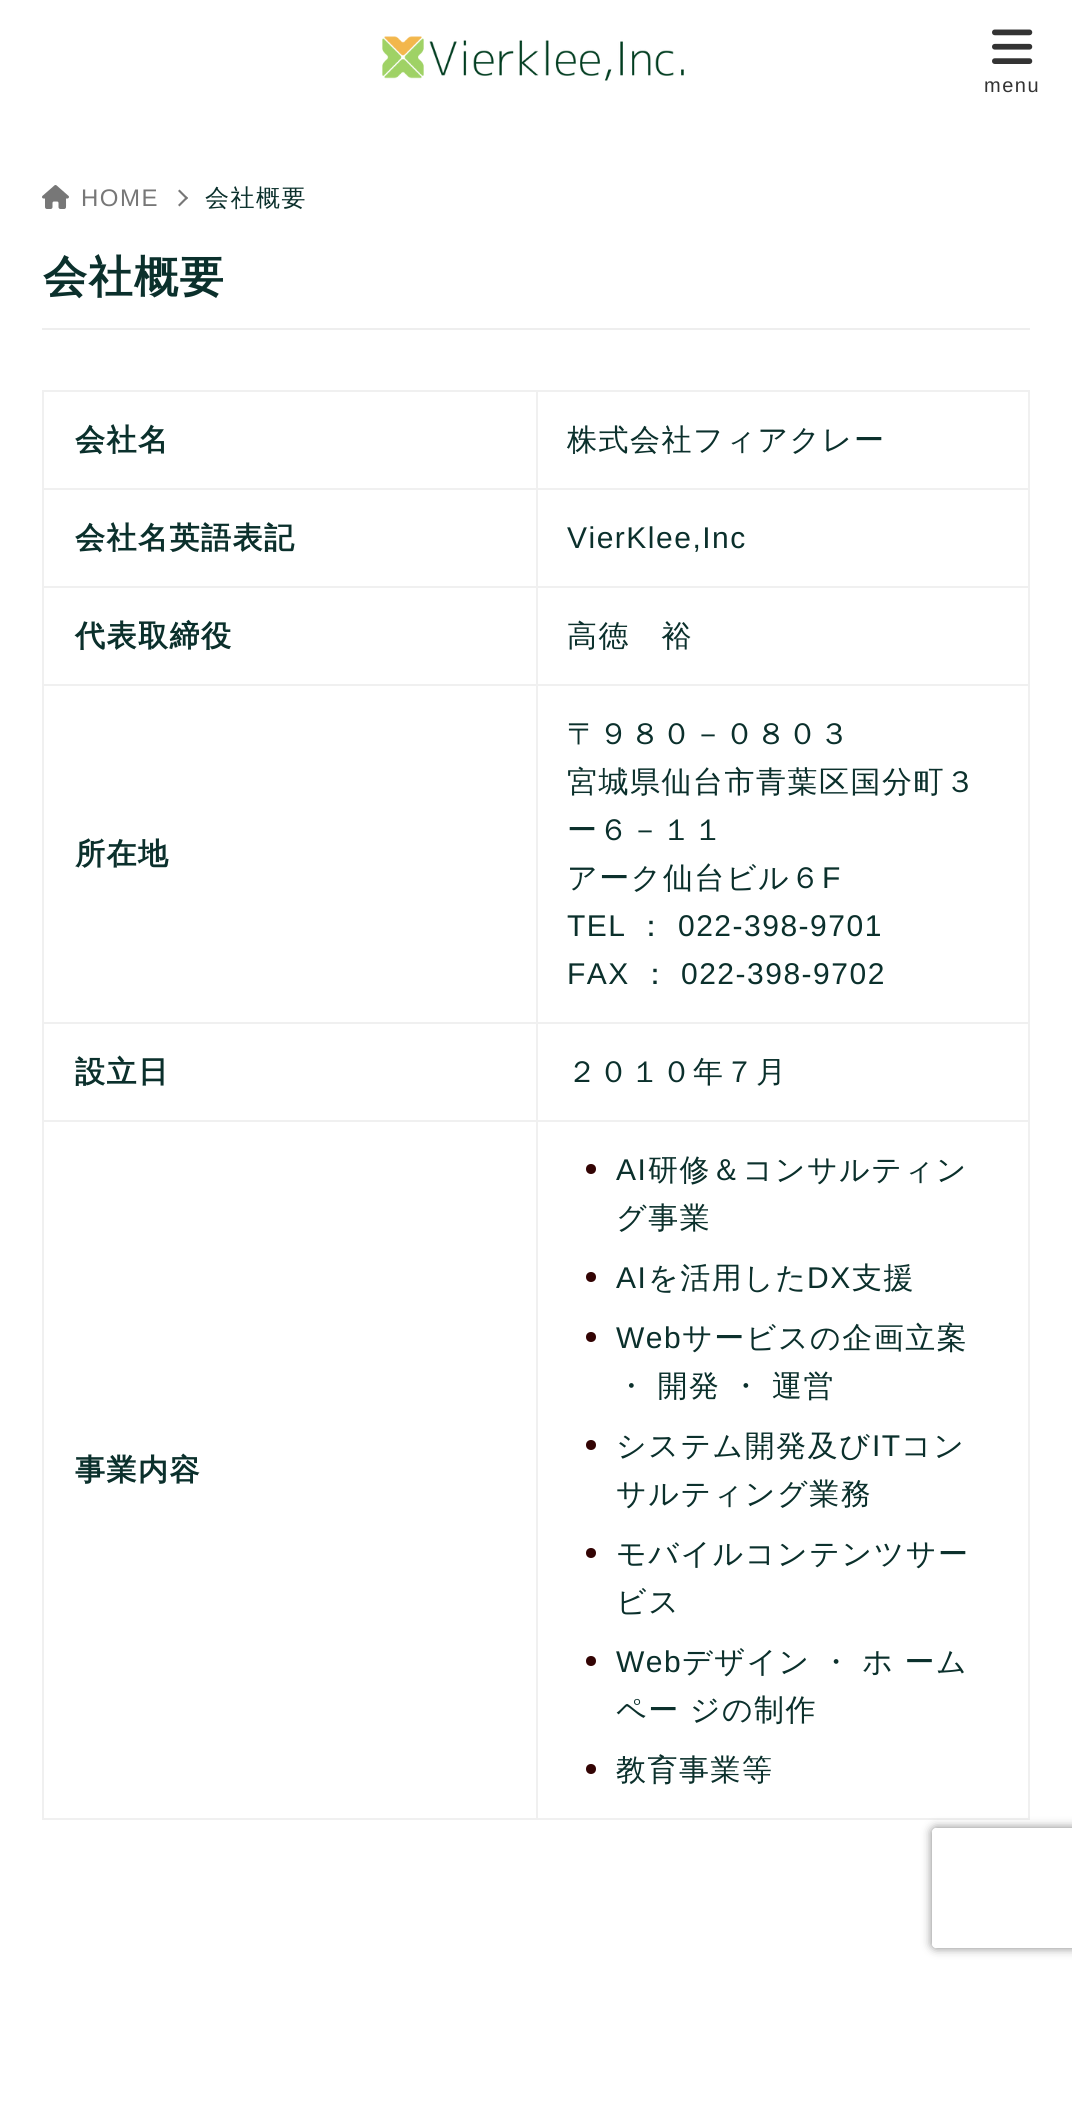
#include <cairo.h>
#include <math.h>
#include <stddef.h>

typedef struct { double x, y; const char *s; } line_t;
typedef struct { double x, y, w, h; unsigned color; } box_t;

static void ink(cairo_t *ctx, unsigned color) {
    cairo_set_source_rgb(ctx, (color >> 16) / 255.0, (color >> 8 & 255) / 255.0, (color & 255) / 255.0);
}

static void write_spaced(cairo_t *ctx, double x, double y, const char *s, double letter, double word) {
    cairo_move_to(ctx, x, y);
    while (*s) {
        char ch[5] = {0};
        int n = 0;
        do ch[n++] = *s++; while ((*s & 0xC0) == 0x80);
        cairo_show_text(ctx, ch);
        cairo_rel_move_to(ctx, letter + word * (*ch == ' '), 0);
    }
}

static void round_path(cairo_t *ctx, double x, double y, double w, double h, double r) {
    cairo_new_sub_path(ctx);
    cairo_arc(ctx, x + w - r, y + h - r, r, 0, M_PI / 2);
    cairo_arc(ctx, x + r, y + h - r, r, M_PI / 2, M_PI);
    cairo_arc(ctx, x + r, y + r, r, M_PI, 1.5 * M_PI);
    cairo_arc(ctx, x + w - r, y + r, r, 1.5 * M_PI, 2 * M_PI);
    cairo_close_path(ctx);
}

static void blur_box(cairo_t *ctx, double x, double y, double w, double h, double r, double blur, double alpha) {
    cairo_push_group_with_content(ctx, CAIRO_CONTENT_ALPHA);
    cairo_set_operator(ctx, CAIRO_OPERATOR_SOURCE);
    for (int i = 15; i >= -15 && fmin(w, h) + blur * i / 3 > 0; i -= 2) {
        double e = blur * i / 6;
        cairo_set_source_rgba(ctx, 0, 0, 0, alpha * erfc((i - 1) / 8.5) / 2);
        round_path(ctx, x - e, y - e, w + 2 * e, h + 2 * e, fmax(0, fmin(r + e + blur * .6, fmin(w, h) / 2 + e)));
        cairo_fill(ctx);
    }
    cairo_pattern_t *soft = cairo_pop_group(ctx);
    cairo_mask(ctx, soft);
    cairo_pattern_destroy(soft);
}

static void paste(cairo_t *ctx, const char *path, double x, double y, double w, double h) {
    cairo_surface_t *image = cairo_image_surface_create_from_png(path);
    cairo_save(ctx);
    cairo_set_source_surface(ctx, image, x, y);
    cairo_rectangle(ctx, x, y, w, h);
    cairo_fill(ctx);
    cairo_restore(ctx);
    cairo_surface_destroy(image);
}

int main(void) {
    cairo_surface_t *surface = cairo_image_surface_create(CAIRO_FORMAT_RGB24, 1072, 2108);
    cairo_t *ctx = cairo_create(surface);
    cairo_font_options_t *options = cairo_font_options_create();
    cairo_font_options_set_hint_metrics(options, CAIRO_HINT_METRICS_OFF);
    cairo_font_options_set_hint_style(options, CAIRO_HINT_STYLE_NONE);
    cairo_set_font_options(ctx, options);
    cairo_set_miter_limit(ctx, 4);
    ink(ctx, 0xFFFFFF);
    cairo_paint(ctx);
    paste(ctx, "media/1.png", 382, 36, 302, 45);
    paste(ctx, "media/2.png", 992, 29, 41, 35);
    cairo_select_font_face(ctx, "Liberation Sans", CAIRO_FONT_SLANT_NORMAL, CAIRO_FONT_WEIGHT_NORMAL);
    cairo_set_font_size(ctx, 20);
    ink(ctx, 0x333333);
    write_spaced(ctx, 984, 92, "menu", 1.5, 0);
    paste(ctx, "media/3.png", 42, 185, 27, 24);
    cairo_set_font_size(ctx, 24);
    ink(ctx, 0x777777);
    write_spaced(ctx, 81, 206, "HOME", 1.5, 0);
    cairo_new_path(ctx);
    cairo_move_to(ctx, 179.5, 189.5);
    cairo_line_to(ctx, 188, 198);
    cairo_line_to(ctx, 186.5, 199.5);
    cairo_line_to(ctx, 178, 191);
    cairo_close_path(ctx);
    cairo_fill(ctx);
    cairo_new_path(ctx);
    cairo_move_to(ctx, 186.5, 196.5);
    cairo_line_to(ctx, 188, 198);
    cairo_line_to(ctx, 179.5, 206.5);
    cairo_line_to(ctx, 178, 205);
    cairo_close_path(ctx);
    cairo_fill(ctx);
    cairo_select_font_face(ctx, "WenQuanYi Zen Hei Medium", CAIRO_FONT_SLANT_NORMAL, CAIRO_FONT_WEIGHT_NORMAL);
    ink(ctx, 0x0B302C);
    write_spaced(ctx, 205, 206, "会社概要", 1.5, 0);
    ink(ctx, 0xEEEEEE);
    cairo_rectangle(ctx, 42, 328, 988, 2);
    cairo_fill(ctx);
    cairo_select_font_face(ctx, "WenQuanYi Zen Hei", CAIRO_FONT_SLANT_NORMAL, CAIRO_FONT_WEIGHT_BOLD);
    cairo_set_font_size(ctx, 44);
    ink(ctx, 0x0B302C);
    write_spaced(ctx, 43, 292, "会社概要", 1.5, 0);
    {
        static const box_t items[] = {
            {42, 390, 988, 2, 0xF0F0F0},
            {1028, 390, 2, 1430, 0xF0F0F0},
            {42, 1818, 988, 2, 0xF0F0F0},
            {42, 390, 2, 1430, 0xF0F0F0},
        };
        for (size_t i = 0; i < sizeof items / sizeof *items; i++) {
            ink(ctx, items[i].color);
            cairo_rectangle(ctx, items[i].x, items[i].y, items[i].w, items[i].h);
            cairo_fill(ctx);
        }
    }
    cairo_set_font_size(ctx, 30);
    ink(ctx, 0x0B302C);
    write_spaced(ctx, 75, 450, "会社名", 1.5, 0);
    {
        static const box_t items[] = {
            {536, 488, 494, 2, 0xF0F0F0},
            {536, 586, 494, 2, 0xF0F0F0},
            {536, 684, 494, 2, 0xF0F0F0},
            {536, 1022, 494, 2, 0xF0F0F0},
            {536, 1120, 494, 2, 0xF0F0F0},
            {536, 1120, 2, 700, 0xF0F0F0},
            {42, 1120, 496, 2, 0xF0F0F0},
            {536, 1022, 2, 100, 0xF0F0F0},
            {42, 1022, 496, 2, 0xF0F0F0},
            {536, 684, 2, 340, 0xF0F0F0},
            {42, 684, 496, 2, 0xF0F0F0},
            {536, 586, 2, 100, 0xF0F0F0},
            {42, 586, 496, 2, 0xF0F0F0},
            {536, 488, 2, 100, 0xF0F0F0},
            {42, 488, 496, 2, 0xF0F0F0},
            {536, 390, 2, 100, 0xF0F0F0},
        };
        for (size_t i = 0; i < sizeof items / sizeof *items; i++) {
            ink(ctx, items[i].color);
            cairo_rectangle(ctx, items[i].x, items[i].y, items[i].w, items[i].h);
            cairo_fill(ctx);
        }
    }
    cairo_select_font_face(ctx, "WenQuanYi Zen Hei Medium", CAIRO_FONT_SLANT_NORMAL, CAIRO_FONT_WEIGHT_NORMAL);
    ink(ctx, 0x0B302C);
    write_spaced(ctx, 567, 450, "株式会社フィアクレー", 1.5, 0);
    cairo_select_font_face(ctx, "WenQuanYi Zen Hei", CAIRO_FONT_SLANT_NORMAL, CAIRO_FONT_WEIGHT_BOLD);
    write_spaced(ctx, 75, 548, "会社名英語表記", 1.5, 0);
    cairo_select_font_face(ctx, "Liberation Sans", CAIRO_FONT_SLANT_NORMAL, CAIRO_FONT_WEIGHT_NORMAL);
    write_spaced(ctx, 567, 548, "VierKlee,Inc", 1.5, 0);
    cairo_select_font_face(ctx, "WenQuanYi Zen Hei", CAIRO_FONT_SLANT_NORMAL, CAIRO_FONT_WEIGHT_BOLD);
    write_spaced(ctx, 75, 646, "代表取締役", 1.5, 0);
    cairo_select_font_face(ctx, "WenQuanYi Zen Hei Medium", CAIRO_FONT_SLANT_NORMAL, CAIRO_FONT_WEIGHT_NORMAL);
    write_spaced(ctx, 567, 646, "高徳　裕", 1.5, 0);
    cairo_select_font_face(ctx, "WenQuanYi Zen Hei", CAIRO_FONT_SLANT_NORMAL, CAIRO_FONT_WEIGHT_BOLD);
    write_spaced(ctx, 75, 864, "所在地", 1.5, 0);
    cairo_select_font_face(ctx, "WenQuanYi Zen Hei Medium", CAIRO_FONT_SLANT_NORMAL, CAIRO_FONT_WEIGHT_NORMAL);
    {
        static const line_t items[] = {
            {567, 744, "〒９８０－０８０３"},
            {567, 792, "宮城県仙台市青葉区国分町３"},
            {567, 840, "ー６－１１"},
            {567, 888, "アーク仙台ビル６"},
        };
        for (size_t i = 0; i < sizeof items / sizeof *items; i++) {
            write_spaced(ctx, items[i].x, items[i].y, items[i].s, 1.5, 0);
        }
    }
    cairo_select_font_face(ctx, "Liberation Sans", CAIRO_FONT_SLANT_NORMAL, CAIRO_FONT_WEIGHT_NORMAL);
    write_spaced(ctx, 822, 888, "F", 1.5, 0);
    write_spaced(ctx, 567, 936, "TEL", 1.5, 0);
    cairo_select_font_face(ctx, "WenQuanYi Zen Hei Medium", CAIRO_FONT_SLANT_NORMAL, CAIRO_FONT_WEIGHT_NORMAL);
    write_spaced(ctx, 636, 936, "：", 1.5, 0);
    cairo_select_font_face(ctx, "Liberation Sans", CAIRO_FONT_SLANT_NORMAL, CAIRO_FONT_WEIGHT_NORMAL);
    write_spaced(ctx, 678, 936, "022-398-9701", 1.5, 0);
    write_spaced(ctx, 567, 984, "FAX", 1.5, 0);
    cairo_select_font_face(ctx, "WenQuanYi Zen Hei Medium", CAIRO_FONT_SLANT_NORMAL, CAIRO_FONT_WEIGHT_NORMAL);
    write_spaced(ctx, 640, 984, "：", 1.5, 0);
    cairo_select_font_face(ctx, "Liberation Sans", CAIRO_FONT_SLANT_NORMAL, CAIRO_FONT_WEIGHT_NORMAL);
    write_spaced(ctx, 681, 984, "022-398-9702", 1.5, 0);
    cairo_select_font_face(ctx, "WenQuanYi Zen Hei", CAIRO_FONT_SLANT_NORMAL, CAIRO_FONT_WEIGHT_BOLD);
    write_spaced(ctx, 75, 1082, "設立日", 1.5, 0);
    cairo_select_font_face(ctx, "WenQuanYi Zen Hei Medium", CAIRO_FONT_SLANT_NORMAL, CAIRO_FONT_WEIGHT_NORMAL);
    write_spaced(ctx, 567, 1082, "２０１０年７月", 1.5, 0);
    cairo_select_font_face(ctx, "WenQuanYi Zen Hei", CAIRO_FONT_SLANT_NORMAL, CAIRO_FONT_WEIGHT_BOLD);
    write_spaced(ctx, 75, 1480, "事業内容", 1.5, 0);
    ink(ctx, 0x330404);
    cairo_new_path(ctx);
    cairo_arc(ctx, 591, 1169, 5, 0, 2 * M_PI);
    cairo_fill(ctx);
    cairo_select_font_face(ctx, "Liberation Sans", CAIRO_FONT_SLANT_NORMAL, CAIRO_FONT_WEIGHT_NORMAL);
    ink(ctx, 0x0B302C);
    write_spaced(ctx, 616, 1180, "AI", 1.5, 0);
    cairo_select_font_face(ctx, "WenQuanYi Zen Hei Medium", CAIRO_FONT_SLANT_NORMAL, CAIRO_FONT_WEIGHT_NORMAL);
    write_spaced(ctx, 648, 1180, "研修＆コンサルティン", 1.5, 0);
    write_spaced(ctx, 616, 1228, "グ事業", 1.5, 0);
    ink(ctx, 0x330404);
    cairo_new_path(ctx);
    cairo_arc(ctx, 591, 1277, 5, 0, 2 * M_PI);
    cairo_fill(ctx);
    cairo_select_font_face(ctx, "Liberation Sans", CAIRO_FONT_SLANT_NORMAL, CAIRO_FONT_WEIGHT_NORMAL);
    ink(ctx, 0x0B302C);
    write_spaced(ctx, 616, 1288, "AI", 1.5, 0);
    cairo_select_font_face(ctx, "WenQuanYi Zen Hei Medium", CAIRO_FONT_SLANT_NORMAL, CAIRO_FONT_WEIGHT_NORMAL);
    write_spaced(ctx, 648, 1288, "を活用した", 1.5, 0);
    cairo_select_font_face(ctx, "Liberation Sans", CAIRO_FONT_SLANT_NORMAL, CAIRO_FONT_WEIGHT_NORMAL);
    write_spaced(ctx, 807, 1288, "DX", 1.5, 0);
    cairo_select_font_face(ctx, "WenQuanYi Zen Hei Medium", CAIRO_FONT_SLANT_NORMAL, CAIRO_FONT_WEIGHT_NORMAL);
    write_spaced(ctx, 852, 1288, "支援", 1.5, 0);
    ink(ctx, 0x330404);
    cairo_new_path(ctx);
    cairo_arc(ctx, 591, 1337, 5, 0, 2 * M_PI);
    cairo_fill(ctx);
    cairo_select_font_face(ctx, "Liberation Sans", CAIRO_FONT_SLANT_NORMAL, CAIRO_FONT_WEIGHT_NORMAL);
    ink(ctx, 0x0B302C);
    write_spaced(ctx, 616, 1348, "Web", 1.5, 0);
    cairo_select_font_face(ctx, "WenQuanYi Zen Hei Medium", CAIRO_FONT_SLANT_NORMAL, CAIRO_FONT_WEIGHT_NORMAL);
    write_spaced(ctx, 682, 1348, "サービスの企画立案", 1.5, 0);
    write_spaced(ctx, 616, 1396, "・ 開発 ・ 運営", 1.5, -0.5);
    ink(ctx, 0x330404);
    cairo_new_path(ctx);
    cairo_arc(ctx, 591, 1445, 5, 0, 2 * M_PI);
    cairo_fill(ctx);
    ink(ctx, 0x0B302C);
    write_spaced(ctx, 616, 1456, "システム開発及び", 1.5, 0);
    cairo_select_font_face(ctx, "Liberation Sans", CAIRO_FONT_SLANT_NORMAL, CAIRO_FONT_WEIGHT_NORMAL);
    write_spaced(ctx, 872, 1456, "IT", 1.5, 0);
    cairo_select_font_face(ctx, "WenQuanYi Zen Hei Medium", CAIRO_FONT_SLANT_NORMAL, CAIRO_FONT_WEIGHT_NORMAL);
    write_spaced(ctx, 901, 1456, "コン", 1.5, 0);
    write_spaced(ctx, 616, 1504, "サルティング業務", 1.5, 0);
    ink(ctx, 0x330404);
    cairo_new_path(ctx);
    cairo_arc(ctx, 591, 1553, 5, 0, 2 * M_PI);
    cairo_fill(ctx);
    ink(ctx, 0x0B302C);
    write_spaced(ctx, 616, 1564, "モバイルコンテンツサー", 1.5, 0);
    write_spaced(ctx, 616, 1612, "ビス", 1.5, 0);
    ink(ctx, 0x330404);
    cairo_new_path(ctx);
    cairo_arc(ctx, 591, 1661, 5, 0, 2 * M_PI);
    cairo_fill(ctx);
    cairo_select_font_face(ctx, "Liberation Sans", CAIRO_FONT_SLANT_NORMAL, CAIRO_FONT_WEIGHT_NORMAL);
    ink(ctx, 0x0B302C);
    write_spaced(ctx, 616, 1672, "Web", 1.5, 0);
    cairo_select_font_face(ctx, "WenQuanYi Zen Hei Medium", CAIRO_FONT_SLANT_NORMAL, CAIRO_FONT_WEIGHT_NORMAL);
    write_spaced(ctx, 682, 1672, "デザイン ・ ホ ーム", 1.5, -0.5);
    write_spaced(ctx, 616, 1720, "ペー ジの制作", 1.5, -0.5);
    ink(ctx, 0x330404);
    cairo_new_path(ctx);
    cairo_arc(ctx, 591, 1769, 5, 0, 2 * M_PI);
    cairo_fill(ctx);
    ink(ctx, 0x0B302C);
    write_spaced(ctx, 616, 1780, "教育事業等", 1.5, 0);
    cairo_save(ctx);
    cairo_set_fill_rule(ctx, CAIRO_FILL_RULE_EVEN_ODD);
    cairo_new_path(ctx);
    cairo_move_to(ctx, 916, 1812);
    cairo_line_to(ctx, 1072, 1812);
    cairo_line_to(ctx, 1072, 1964);
    cairo_line_to(ctx, 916, 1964);
    cairo_close_path(ctx);
    cairo_move_to(ctx, 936, 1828);
    cairo_line_to(ctx, 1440, 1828);
    cairo_curve_to(ctx, 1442, 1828, 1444, 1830, 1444, 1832);
    cairo_line_to(ctx, 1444, 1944);
    cairo_curve_to(ctx, 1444, 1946, 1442, 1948, 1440, 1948);
    cairo_line_to(ctx, 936, 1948);
    cairo_curve_to(ctx, 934, 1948, 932, 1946, 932, 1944);
    cairo_line_to(ctx, 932, 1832);
    cairo_curve_to(ctx, 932, 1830, 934, 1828, 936, 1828);
    cairo_close_path(ctx);
    cairo_clip(ctx);
    ink(ctx, 0x808080);
    blur_box(ctx, 932, 1828, 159, 120, 4, 5, 1);
    cairo_restore(ctx);
    cairo_surface_write_to_png(surface, "image.png");
    cairo_font_options_destroy(options);
    cairo_destroy(ctx);
    cairo_surface_destroy(surface);
    return 0;
}
